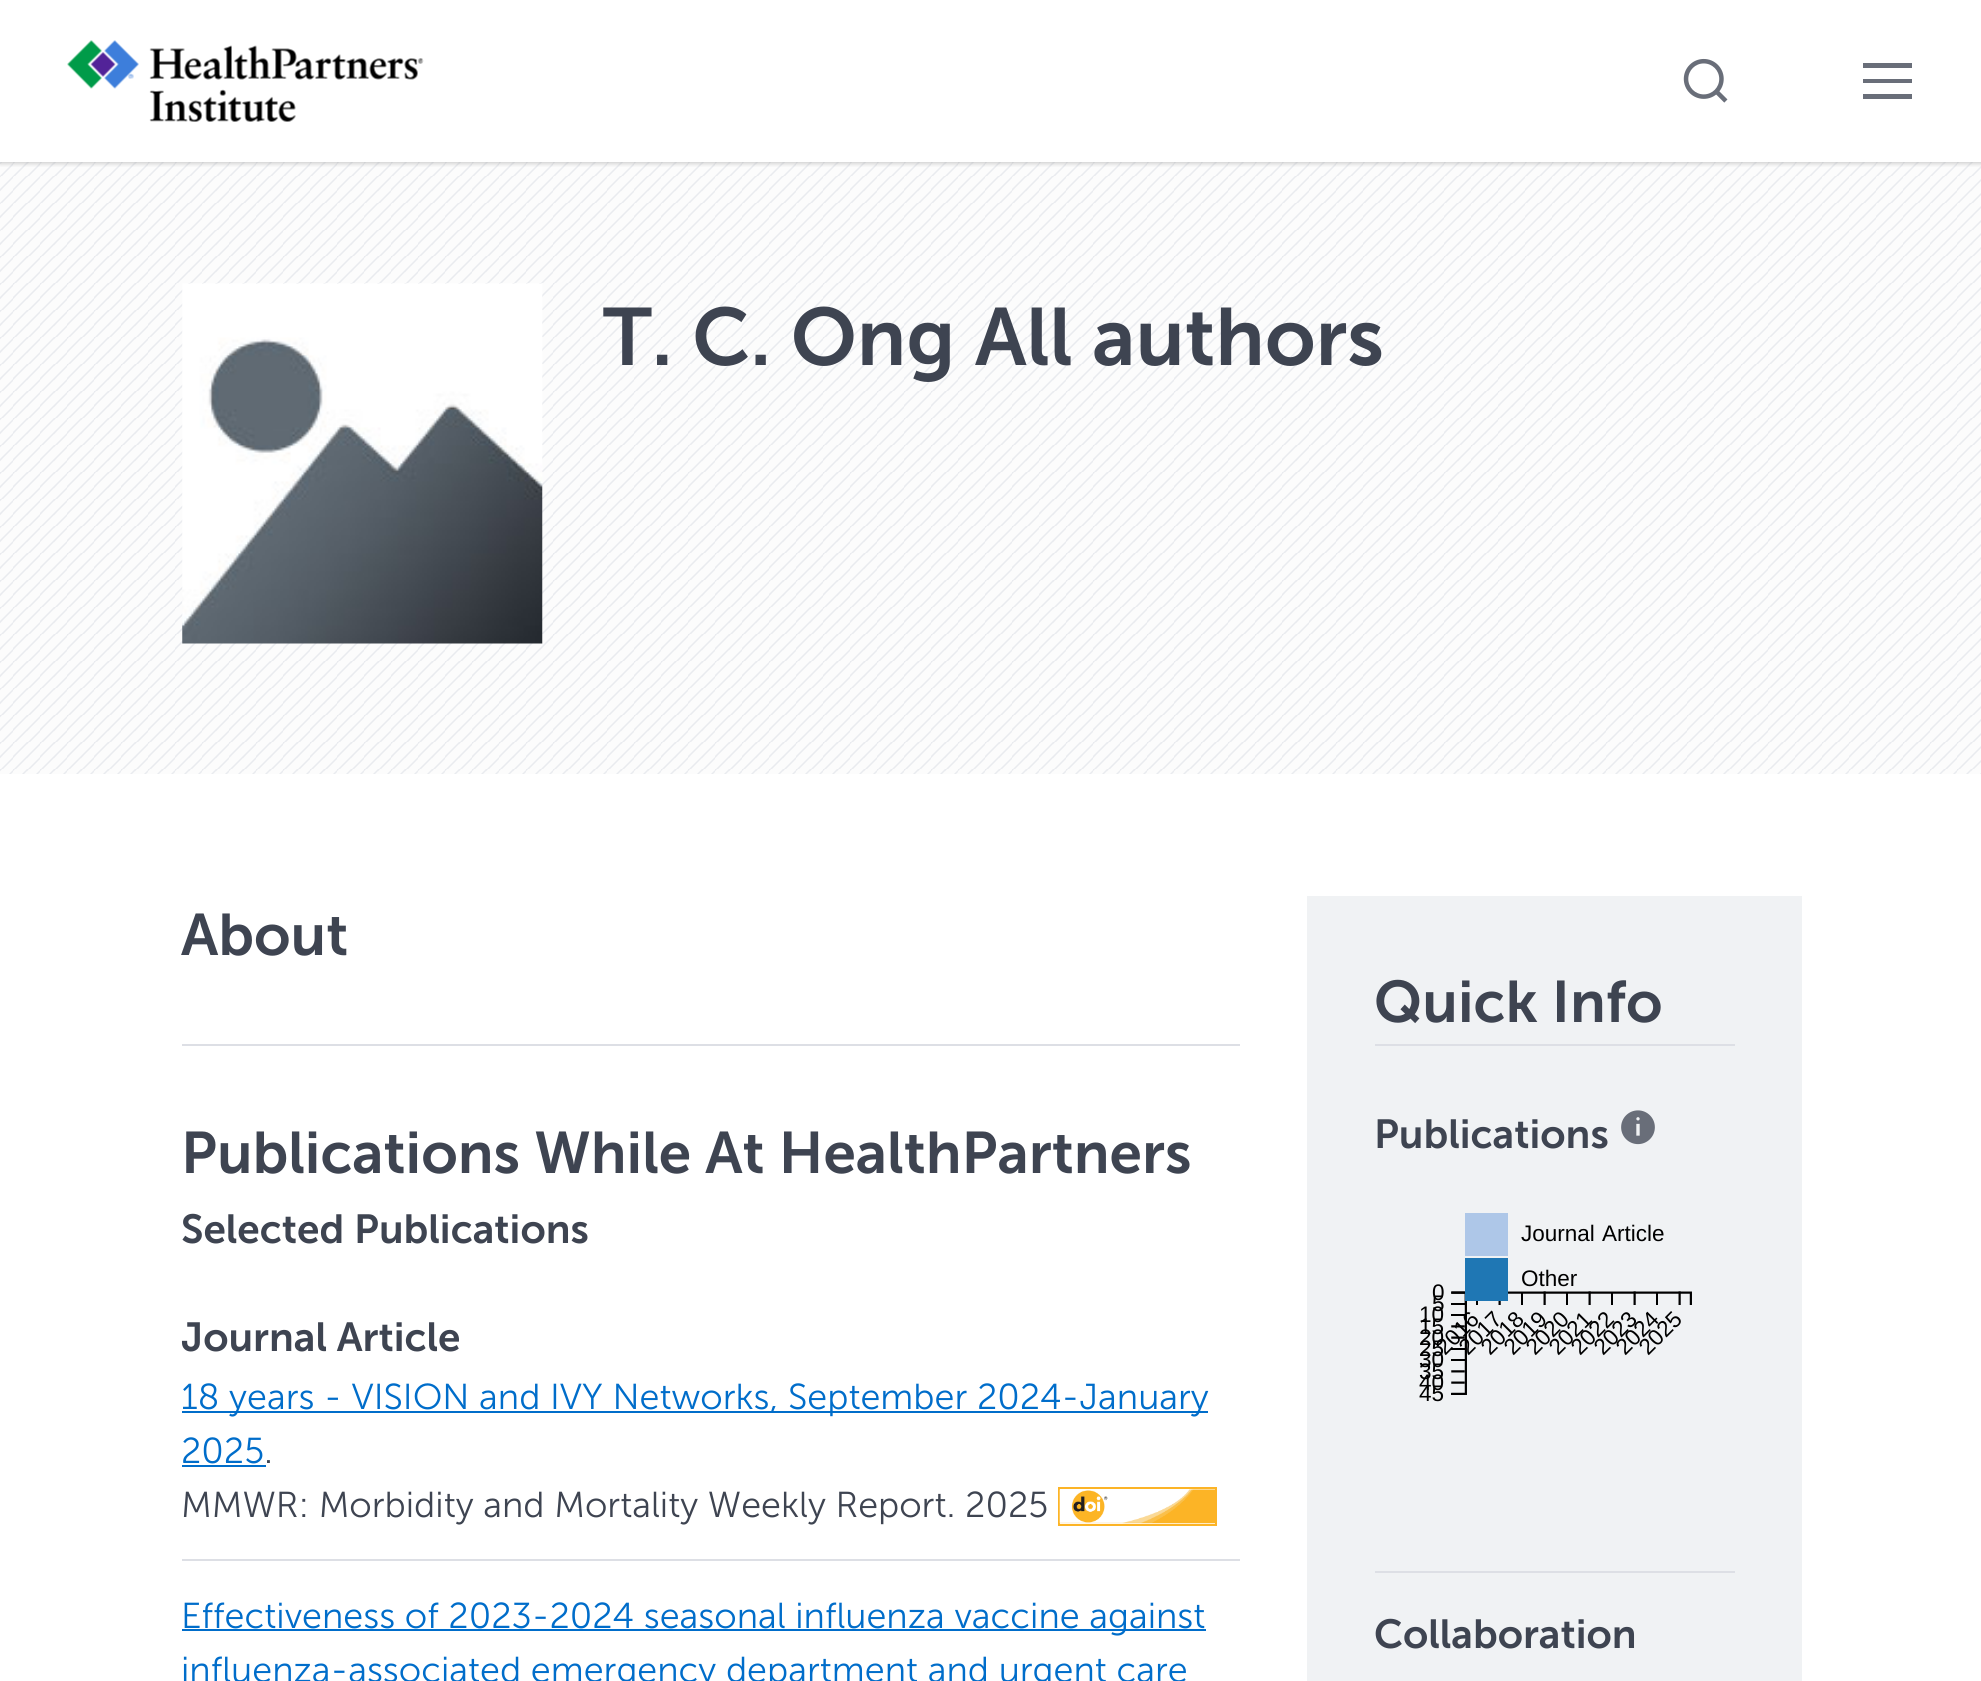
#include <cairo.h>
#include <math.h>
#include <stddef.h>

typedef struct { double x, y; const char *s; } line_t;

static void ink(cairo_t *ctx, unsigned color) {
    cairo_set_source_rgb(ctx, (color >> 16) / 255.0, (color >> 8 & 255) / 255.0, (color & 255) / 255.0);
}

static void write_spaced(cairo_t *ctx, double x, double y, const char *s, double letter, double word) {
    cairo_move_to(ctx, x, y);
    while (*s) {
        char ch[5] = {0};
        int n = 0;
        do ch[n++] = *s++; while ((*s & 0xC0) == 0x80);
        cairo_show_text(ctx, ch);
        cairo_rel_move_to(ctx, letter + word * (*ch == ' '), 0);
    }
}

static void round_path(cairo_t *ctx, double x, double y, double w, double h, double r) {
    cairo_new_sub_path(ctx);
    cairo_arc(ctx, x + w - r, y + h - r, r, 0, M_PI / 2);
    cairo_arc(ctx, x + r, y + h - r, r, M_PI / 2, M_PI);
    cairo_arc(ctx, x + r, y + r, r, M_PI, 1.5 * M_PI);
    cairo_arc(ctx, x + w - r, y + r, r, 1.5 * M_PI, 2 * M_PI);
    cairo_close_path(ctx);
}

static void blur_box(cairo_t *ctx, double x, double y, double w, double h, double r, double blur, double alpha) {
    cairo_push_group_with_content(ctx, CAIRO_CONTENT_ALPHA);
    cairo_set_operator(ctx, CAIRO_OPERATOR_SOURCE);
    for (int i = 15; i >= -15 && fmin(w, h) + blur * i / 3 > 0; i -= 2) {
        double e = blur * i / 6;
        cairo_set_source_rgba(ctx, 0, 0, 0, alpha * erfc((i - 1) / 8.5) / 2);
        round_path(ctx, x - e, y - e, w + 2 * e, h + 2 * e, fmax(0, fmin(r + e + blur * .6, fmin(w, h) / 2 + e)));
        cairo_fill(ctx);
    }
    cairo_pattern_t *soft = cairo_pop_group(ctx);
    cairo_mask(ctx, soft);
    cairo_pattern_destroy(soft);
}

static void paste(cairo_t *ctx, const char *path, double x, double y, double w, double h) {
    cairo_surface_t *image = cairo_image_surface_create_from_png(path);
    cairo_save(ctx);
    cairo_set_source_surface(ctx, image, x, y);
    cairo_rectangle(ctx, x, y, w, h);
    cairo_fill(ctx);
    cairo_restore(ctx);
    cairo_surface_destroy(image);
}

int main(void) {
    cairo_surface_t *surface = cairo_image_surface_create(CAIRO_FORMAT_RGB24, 1981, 1681);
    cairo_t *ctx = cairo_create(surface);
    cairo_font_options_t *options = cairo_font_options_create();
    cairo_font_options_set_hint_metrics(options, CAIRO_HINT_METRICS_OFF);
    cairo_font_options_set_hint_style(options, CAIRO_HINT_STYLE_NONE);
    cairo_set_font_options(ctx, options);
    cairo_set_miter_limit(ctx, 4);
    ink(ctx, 0xFFFFFF);
    cairo_paint(ctx);
    paste(ctx, "media/3.png", 0, 162, 1981, 612);
    cairo_save(ctx);
    cairo_rectangle(ctx, 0, 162, 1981, 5);
    cairo_clip(ctx);
    ink(ctx, 0xA8A8A8);
    blur_box(ctx, 0, 2, 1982, 162, 0, 2, 0.5);
    cairo_restore(ctx);
    paste(ctx, "media/1.png", 67, 40, 357, 82);
    paste(ctx, "media/2.png", 1683, 58, 45, 45);
    ink(ctx, 0x696E79);
    cairo_new_path(ctx);
    cairo_move_to(ctx, 1863, 99);
    cairo_line_to(ctx, 1912, 99);
    cairo_line_to(ctx, 1912, 94);
    cairo_line_to(ctx, 1863, 94);
    cairo_close_path(ctx);
    cairo_move_to(ctx, 1863, 83);
    cairo_line_to(ctx, 1912, 83);
    cairo_line_to(ctx, 1912, 79);
    cairo_line_to(ctx, 1863, 79);
    cairo_close_path(ctx);
    cairo_move_to(ctx, 1863, 63);
    cairo_line_to(ctx, 1863, 68);
    cairo_line_to(ctx, 1912, 68);
    cairo_line_to(ctx, 1912, 63);
    cairo_close_path(ctx);
    cairo_fill(ctx);
    paste(ctx, "media/4.png", 182, 283, 361, 361);
    cairo_select_font_face(ctx, "Museo Sans SemiBold", CAIRO_FONT_SLANT_NORMAL, CAIRO_FONT_WEIGHT_NORMAL);
    cairo_set_font_size(ctx, 81);
    ink(ctx, 0x3E4451);
    cairo_move_to(ctx, 603, 365);
    cairo_show_text(ctx, "T. C. Ong All authors");
    cairo_set_font_size(ctx, 58.5);
    cairo_move_to(ctx, 181, 955);
    cairo_show_text(ctx, "About");
    ink(ctx, 0xDDDFE5);
    cairo_rectangle(ctx, 182, 1044, 1058, 2);
    cairo_fill(ctx);
    ink(ctx, 0x3E4451);
    cairo_move_to(ctx, 181, 1173);
    cairo_show_text(ctx, "Publications While At HealthPartners");
    cairo_set_font_size(ctx, 40.5);
    cairo_move_to(ctx, 181, 1243);
    cairo_show_text(ctx, "Selected Publications");
    cairo_move_to(ctx, 181, 1351);
    cairo_show_text(ctx, "Journal Article");
    ink(ctx, 0x006DCA);
    cairo_rectangle(ctx, 182, 1411, 1026, 2);
    cairo_fill(ctx);
    cairo_select_font_face(ctx, "Museo Sans Light", CAIRO_FONT_SLANT_NORMAL, CAIRO_FONT_WEIGHT_NORMAL);
    cairo_set_font_size(ctx, 36);
    cairo_move_to(ctx, 181, 1409);
    cairo_show_text(ctx, "18 years - VISION and IVY Networks, September 2024-January");
    cairo_move_to(ctx, 181, 1463);
    cairo_show_text(ctx, "2025");
    ink(ctx, 0x3E4451);
    cairo_move_to(ctx, 264, 1463);
    cairo_show_text(ctx, ".");
    ink(ctx, 0x006DCA);
    cairo_rectangle(ctx, 182, 1465, 84, 2);
    cairo_fill(ctx);
    cairo_rectangle(ctx, 1059, 1488, 157, 37);
    ink(ctx, 0xFCB426);
    cairo_stroke(ctx);
    ink(ctx, 0x3E4451);
    cairo_move_to(ctx, 181, 1517);
    cairo_show_text(ctx, "MMWR: Morbidity and Mortality Weekly Report. 2025");
    paste(ctx, "media/5.png", 1059, 1489, 156, 35);
    ink(ctx, 0xDDDFE5);
    cairo_rectangle(ctx, 182, 1559, 1058, 2);
    cairo_fill(ctx);
    ink(ctx, 0x006DCA);
    cairo_rectangle(ctx, 182, 1629, 1024, 2);
    cairo_fill(ctx);
    cairo_move_to(ctx, 181, 1628);
    cairo_show_text(ctx, "Effectiveness of 2023-2024 seasonal influenza vaccine against");
    cairo_move_to(ctx, 181, 1682);
    cairo_show_text(ctx, "influenza-associated emergency department and urgent care");
    ink(ctx, 0xF0F2F4);
    cairo_rectangle(ctx, 1307, 896, 495, 785);
    cairo_fill(ctx);
    cairo_select_font_face(ctx, "Museo Sans SemiBold", CAIRO_FONT_SLANT_NORMAL, CAIRO_FONT_WEIGHT_NORMAL);
    cairo_set_font_size(ctx, 58.5);
    ink(ctx, 0x3E4451);
    cairo_move_to(ctx, 1374, 1022);
    cairo_show_text(ctx, "Quick Info");
    ink(ctx, 0xDDDFE5);
    cairo_rectangle(ctx, 1375, 1044, 360, 2);
    cairo_fill(ctx);
    cairo_set_font_size(ctx, 40.5);
    ink(ctx, 0x3E4451);
    cairo_move_to(ctx, 1374, 1148);
    cairo_show_text(ctx, "Publications");
    paste(ctx, "media/6.png", 1621, 1110, 34, 35);
    paste(ctx, "media/7.png", 1451, 1213, 241, 182);
    cairo_select_font_face(ctx, "Liberation Sans", CAIRO_FONT_SLANT_NORMAL, CAIRO_FONT_WEIGHT_NORMAL);
    cairo_set_font_size(ctx, 22.5);
    ink(ctx, 0x000000);
    write_spaced(ctx, 1521, 1241, "Journal Article", 0, 1);
    {
        static const line_t items[] = {
            {1521, 1286, "Other"},
            {1432, 1300, "0"},
            {1432, 1311, "5"},
        };
        for (size_t i = 0; i < sizeof items / sizeof *items; i++) {
            cairo_move_to(ctx, items[i].x, items[i].y);
            cairo_show_text(ctx, items[i].s);
        }
    }
    cairo_save(ctx);
    cairo_translate(ctx, 1445, 1356);
    cairo_rotate(ctx, -45 * M_PI / 180);
    cairo_move_to(ctx, 0, 0);
    cairo_show_text(ctx, "2016");
    cairo_restore(ctx);
    cairo_move_to(ctx, 1419, 1322);
    cairo_show_text(ctx, "10");
    cairo_save(ctx);
    cairo_translate(ctx, 1468, 1356);
    cairo_rotate(ctx, -45 * M_PI / 180);
    cairo_move_to(ctx, 0, 0);
    cairo_show_text(ctx, "2017");
    cairo_restore(ctx);
    cairo_save(ctx);
    cairo_translate(ctx, 1490, 1356);
    cairo_rotate(ctx, -45 * M_PI / 180);
    cairo_move_to(ctx, 0, 0);
    cairo_show_text(ctx, "2018");
    cairo_restore(ctx);
    cairo_save(ctx);
    cairo_translate(ctx, 1513, 1356);
    cairo_rotate(ctx, -45 * M_PI / 180);
    cairo_move_to(ctx, 0, 0);
    cairo_show_text(ctx, "2019");
    cairo_restore(ctx);
    cairo_save(ctx);
    cairo_translate(ctx, 1535, 1356);
    cairo_rotate(ctx, -45 * M_PI / 180);
    cairo_move_to(ctx, 0, 0);
    cairo_show_text(ctx, "2020");
    cairo_restore(ctx);
    cairo_save(ctx);
    cairo_translate(ctx, 1558, 1356);
    cairo_rotate(ctx, -45 * M_PI / 180);
    cairo_move_to(ctx, 0, 0);
    cairo_show_text(ctx, "2021");
    cairo_restore(ctx);
    cairo_save(ctx);
    cairo_translate(ctx, 1580, 1356);
    cairo_rotate(ctx, -45 * M_PI / 180);
    cairo_move_to(ctx, 0, 0);
    cairo_show_text(ctx, "2022");
    cairo_restore(ctx);
    cairo_save(ctx);
    cairo_translate(ctx, 1603, 1356);
    cairo_rotate(ctx, -45 * M_PI / 180);
    cairo_move_to(ctx, 0, 0);
    cairo_show_text(ctx, "2023");
    cairo_restore(ctx);
    cairo_save(ctx);
    cairo_translate(ctx, 1625, 1356);
    cairo_rotate(ctx, -45 * M_PI / 180);
    cairo_move_to(ctx, 0, 0);
    cairo_show_text(ctx, "2024");
    cairo_restore(ctx);
    cairo_save(ctx);
    cairo_translate(ctx, 1648, 1356);
    cairo_rotate(ctx, -45 * M_PI / 180);
    cairo_move_to(ctx, 0, 0);
    cairo_show_text(ctx, "2025");
    cairo_restore(ctx);
    {
        static const line_t items[] = {
            {1419, 1334, "15"},
            {1419, 1345, "20"},
            {1419, 1356, "25"},
            {1419, 1367, "30"},
            {1419, 1379, "35"},
            {1419, 1390, "40"},
            {1419, 1401, "45"},
        };
        for (size_t i = 0; i < sizeof items / sizeof *items; i++) {
            cairo_move_to(ctx, items[i].x, items[i].y);
            cairo_show_text(ctx, items[i].s);
        }
    }
    ink(ctx, 0xDDDFE5);
    cairo_rectangle(ctx, 1375, 1571, 360, 2);
    cairo_fill(ctx);
    cairo_select_font_face(ctx, "Museo Sans SemiBold", CAIRO_FONT_SLANT_NORMAL, CAIRO_FONT_WEIGHT_NORMAL);
    cairo_set_font_size(ctx, 40.5);
    ink(ctx, 0x3E4451);
    cairo_move_to(ctx, 1374, 1648);
    cairo_show_text(ctx, "Collaboration");
    cairo_surface_write_to_png(surface, "image.png");
    cairo_font_options_destroy(options);
    cairo_destroy(ctx);
    cairo_surface_destroy(surface);
    return 0;
}
